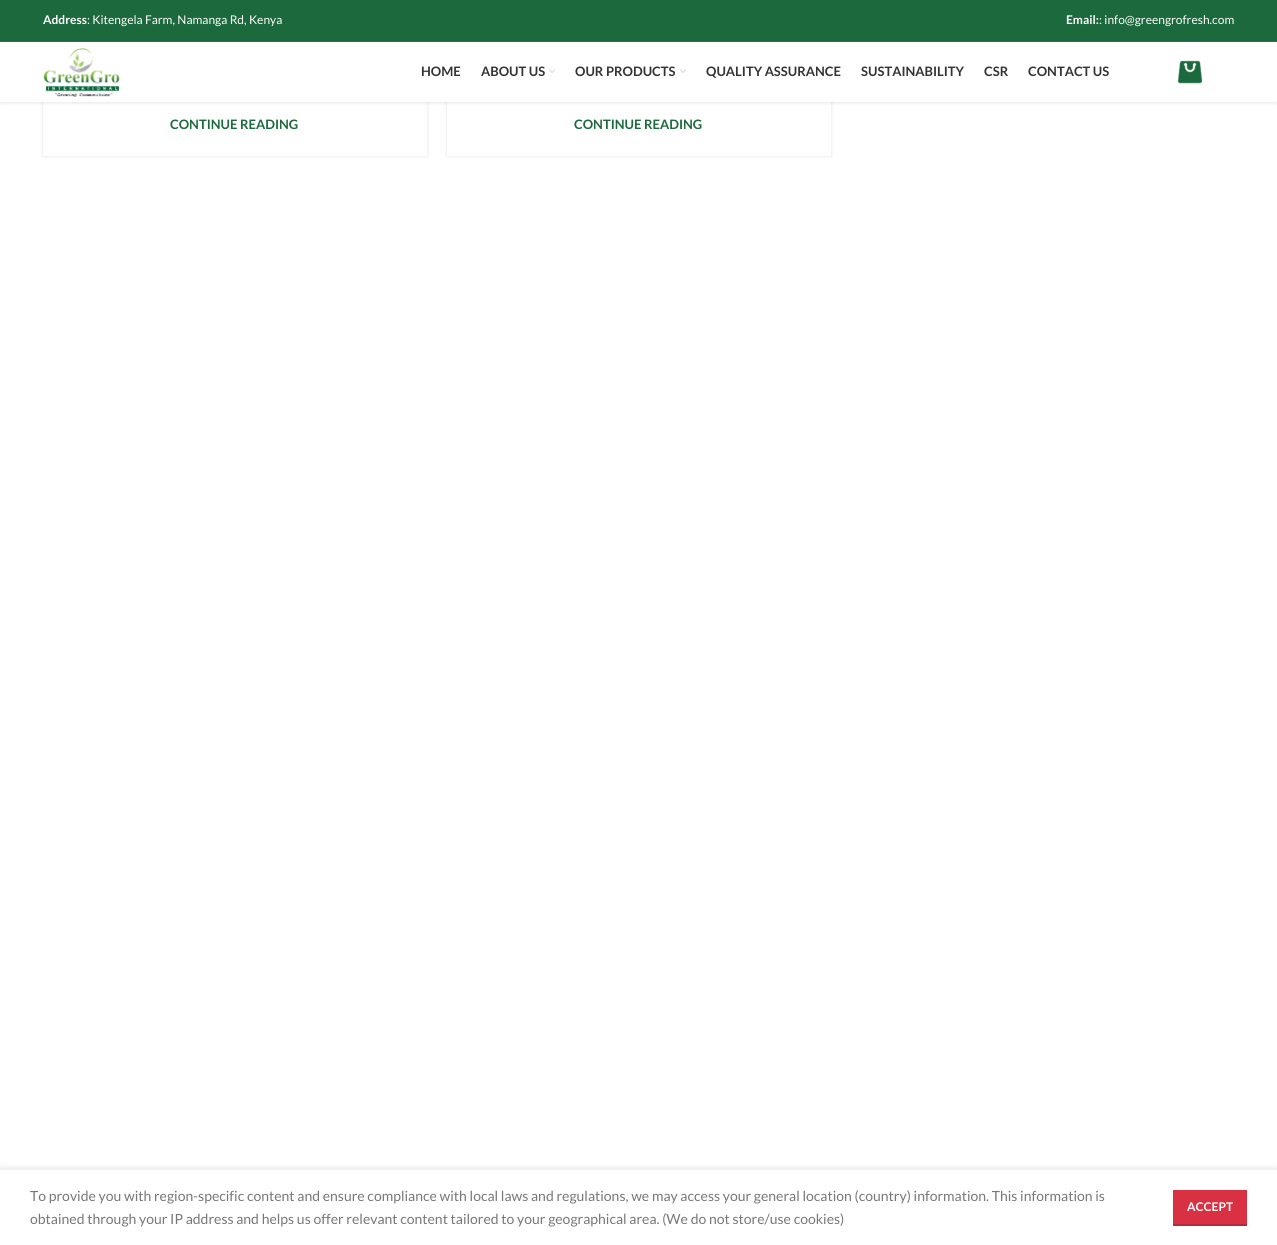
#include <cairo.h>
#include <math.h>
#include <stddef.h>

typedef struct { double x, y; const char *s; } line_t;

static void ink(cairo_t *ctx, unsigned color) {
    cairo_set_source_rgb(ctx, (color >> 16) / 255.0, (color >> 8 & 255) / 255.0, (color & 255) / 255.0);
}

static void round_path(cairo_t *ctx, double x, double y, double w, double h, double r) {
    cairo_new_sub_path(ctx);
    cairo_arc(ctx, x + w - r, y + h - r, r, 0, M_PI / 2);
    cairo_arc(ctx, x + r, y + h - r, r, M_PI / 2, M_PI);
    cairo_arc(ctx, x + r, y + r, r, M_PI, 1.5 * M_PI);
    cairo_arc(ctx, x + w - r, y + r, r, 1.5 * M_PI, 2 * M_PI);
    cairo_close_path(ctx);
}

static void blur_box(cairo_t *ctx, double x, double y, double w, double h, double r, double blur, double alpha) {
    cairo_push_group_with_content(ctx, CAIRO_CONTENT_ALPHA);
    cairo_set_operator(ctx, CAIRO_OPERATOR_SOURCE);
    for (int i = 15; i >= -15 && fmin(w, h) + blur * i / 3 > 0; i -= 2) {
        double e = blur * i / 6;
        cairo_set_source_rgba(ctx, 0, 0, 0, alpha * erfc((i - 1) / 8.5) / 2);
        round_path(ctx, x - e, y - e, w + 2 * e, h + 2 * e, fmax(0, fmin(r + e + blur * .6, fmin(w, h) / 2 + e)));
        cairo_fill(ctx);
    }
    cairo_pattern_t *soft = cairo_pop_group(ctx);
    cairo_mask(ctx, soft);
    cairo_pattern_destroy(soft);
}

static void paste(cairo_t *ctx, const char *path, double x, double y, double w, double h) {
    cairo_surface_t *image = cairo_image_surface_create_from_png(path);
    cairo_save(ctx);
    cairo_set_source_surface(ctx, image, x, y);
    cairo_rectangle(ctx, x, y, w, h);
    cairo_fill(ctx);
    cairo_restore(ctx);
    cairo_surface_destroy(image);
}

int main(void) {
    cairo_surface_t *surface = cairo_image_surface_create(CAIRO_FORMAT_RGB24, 1277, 1245);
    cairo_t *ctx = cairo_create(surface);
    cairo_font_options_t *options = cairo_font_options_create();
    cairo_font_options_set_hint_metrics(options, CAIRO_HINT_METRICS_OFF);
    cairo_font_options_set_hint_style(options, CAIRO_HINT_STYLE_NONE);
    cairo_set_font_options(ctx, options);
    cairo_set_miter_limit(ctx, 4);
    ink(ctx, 0xFFFFFF);
    cairo_paint(ctx);
    ink(ctx, 0x000000);
    blur_box(ctx, 0, 1, 1277, 102, 0, 1.5, 0.1);
    cairo_save(ctx);
    cairo_set_fill_rule(ctx, CAIRO_FILL_RULE_EVEN_ODD);
    cairo_new_path(ctx);
    cairo_move_to(ctx, 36, 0);
    cairo_line_to(ctx, 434, 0);
    cairo_line_to(ctx, 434, 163);
    cairo_line_to(ctx, 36, 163);
    cairo_close_path(ctx);
    cairo_move_to(ctx, 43, -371);
    cairo_line_to(ctx, 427, -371);
    cairo_line_to(ctx, 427, 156);
    cairo_line_to(ctx, 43, 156);
    cairo_close_path(ctx);
    cairo_clip(ctx);
    blur_box(ctx, 43, -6, 384, 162, 0, 2, 0.12);
    cairo_restore(ctx);
    cairo_save(ctx);
    cairo_set_fill_rule(ctx, CAIRO_FILL_RULE_EVEN_ODD);
    cairo_new_path(ctx);
    cairo_move_to(ctx, 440, 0);
    cairo_line_to(ctx, 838, 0);
    cairo_line_to(ctx, 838, 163);
    cairo_line_to(ctx, 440, 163);
    cairo_close_path(ctx);
    cairo_move_to(ctx, 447, -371);
    cairo_line_to(ctx, 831, -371);
    cairo_line_to(ctx, 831, 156);
    cairo_line_to(ctx, 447, 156);
    cairo_close_path(ctx);
    cairo_clip(ctx);
    blur_box(ctx, 447, -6, 384, 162, 0, 2, 0.12);
    cairo_restore(ctx);
    ink(ctx, 0x1B693C);
    cairo_rectangle(ctx, 0, 0, 1277, 41);
    cairo_fill(ctx);
    ink(ctx, 0x2F6E48);
    cairo_rectangle(ctx, 0, 41, 1277, 1);
    cairo_fill(ctx);
    cairo_select_font_face(ctx, "Lato", CAIRO_FONT_SLANT_NORMAL, CAIRO_FONT_WEIGHT_BOLD);
    cairo_set_font_size(ctx, 12);
    ink(ctx, 0xFFFFFF);
    cairo_move_to(ctx, 43, 24);
    cairo_show_text(ctx, "Address");
    cairo_select_font_face(ctx, "Lato", CAIRO_FONT_SLANT_NORMAL, CAIRO_FONT_WEIGHT_NORMAL);
    cairo_move_to(ctx, 87, 24);
    cairo_show_text(ctx, ": Kitengela Farm, Namanga Rd, Kenya");
    cairo_select_font_face(ctx, "Lato", CAIRO_FONT_SLANT_NORMAL, CAIRO_FONT_WEIGHT_BOLD);
    cairo_move_to(ctx, 1066, 24);
    cairo_show_text(ctx, "Email:");
    cairo_select_font_face(ctx, "Lato", CAIRO_FONT_SLANT_NORMAL, CAIRO_FONT_WEIGHT_NORMAL);
    cairo_move_to(ctx, 1099, 24);
    cairo_show_text(ctx, ": info@greengrofresh.com");
    cairo_rectangle(ctx, 0, 42, 1277, 60);
    cairo_fill(ctx);
    paste(ctx, "media/1.png", 43, 48, 77, 49);
    cairo_select_font_face(ctx, "Lato", CAIRO_FONT_SLANT_NORMAL, CAIRO_FONT_WEIGHT_BOLD);
    cairo_set_font_size(ctx, 13);
    ink(ctx, 0x333333);
    cairo_move_to(ctx, 421, 76);
    cairo_show_text(ctx, "HOME");
    cairo_move_to(ctx, 481, 76);
    cairo_show_text(ctx, "ABOUT US");
    paste(ctx, "media/2.png", 549, 69, 6, 4);
    cairo_move_to(ctx, 575, 76);
    cairo_show_text(ctx, "OUR PRODUCTS");
    paste(ctx, "media/2.png", 680, 69, 6, 4);
    {
        static const line_t items[] = {
            {706, 76, "QUALITY ASSURANCE"},
            {861, 76, "SUSTAINABILITY"},
            {984, 76, "CSR"},
            {1028, 76, "CONTACT US"},
        };
        for (size_t i = 0; i < sizeof items / sizeof *items; i++) {
            cairo_move_to(ctx, items[i].x, items[i].y);
            cairo_show_text(ctx, items[i].s);
        }
    }
    paste(ctx, "media/3.png", 1177, 60, 26, 24);
    ink(ctx, 0x1B693C);
    cairo_move_to(ctx, 170, 129);
    cairo_show_text(ctx, "CONTINUE READING");
    cairo_move_to(ctx, 574, 129);
    cairo_show_text(ctx, "CONTINUE READING");
    ink(ctx, 0x000000);
    blur_box(ctx, 0, 1170, 1277, 75, 0, 4.5, 0.14);
    ink(ctx, 0xFFFFFF);
    cairo_rectangle(ctx, 0, 1170, 1277, 75);
    cairo_fill(ctx);
    cairo_select_font_face(ctx, "Lato", CAIRO_FONT_SLANT_NORMAL, CAIRO_FONT_WEIGHT_NORMAL);
    cairo_set_font_size(ctx, 14);
    ink(ctx, 0x777777);
    cairo_move_to(ctx, 30, 1201);
    cairo_show_text(ctx, "To provide you with region-specific content and ensure compliance with local laws and regulations, we may access your general location (country) information. This information is");
    cairo_move_to(ctx, 30, 1224);
    cairo_show_text(ctx, "obtained through your IP address and helps us offer relevant content tailored to your geographical area. (We do not store/use cookies)");
    ink(ctx, 0xD93143);
    cairo_rectangle(ctx, 1173, 1190, 74, 34);
    cairo_fill(ctx);
    ink(ctx, 0xB82A39);
    cairo_rectangle(ctx, 1173, 1224, 74, 2);
    cairo_fill(ctx);
    cairo_select_font_face(ctx, "Lato", CAIRO_FONT_SLANT_NORMAL, CAIRO_FONT_WEIGHT_BOLD);
    cairo_set_font_size(ctx, 12);
    ink(ctx, 0xFFFFFF);
    cairo_move_to(ctx, 1187, 1211);
    cairo_show_text(ctx, "ACCEPT");
    cairo_surface_write_to_png(surface, "image.png");
    cairo_font_options_destroy(options);
    cairo_destroy(ctx);
    cairo_surface_destroy(surface);
    return 0;
}
